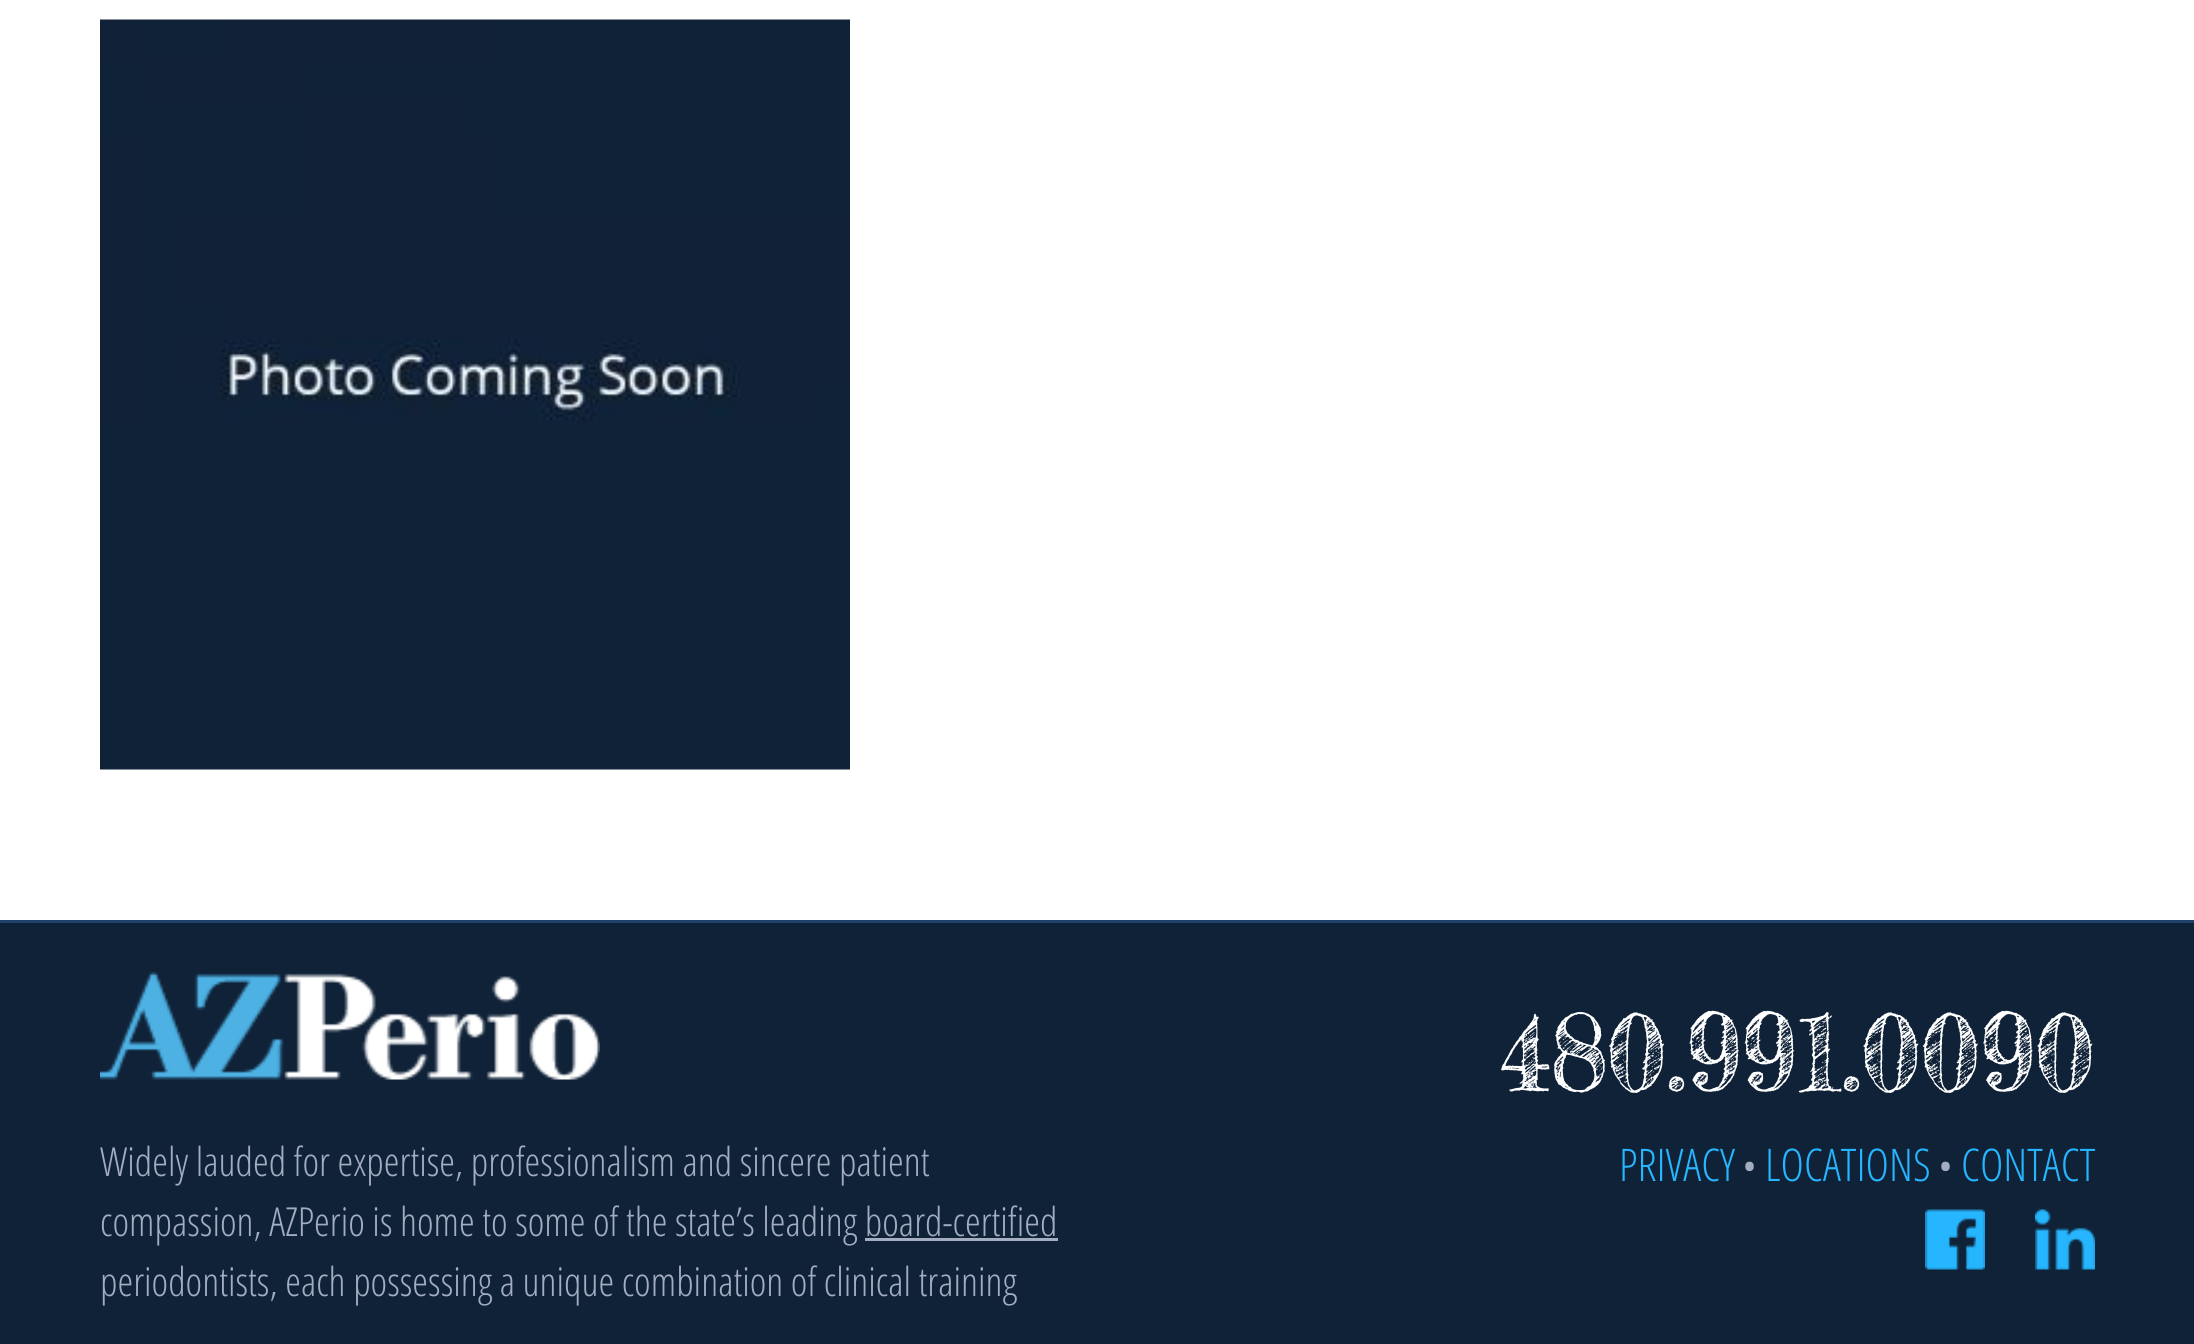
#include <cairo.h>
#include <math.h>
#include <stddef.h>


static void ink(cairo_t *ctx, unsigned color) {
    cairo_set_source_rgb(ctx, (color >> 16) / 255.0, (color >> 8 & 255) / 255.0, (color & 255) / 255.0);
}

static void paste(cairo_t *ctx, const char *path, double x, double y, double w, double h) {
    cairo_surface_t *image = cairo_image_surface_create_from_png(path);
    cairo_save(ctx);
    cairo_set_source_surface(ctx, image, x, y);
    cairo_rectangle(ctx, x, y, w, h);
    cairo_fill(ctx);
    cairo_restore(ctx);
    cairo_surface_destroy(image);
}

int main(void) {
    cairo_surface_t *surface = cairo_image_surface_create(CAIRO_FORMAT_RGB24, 2194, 1344);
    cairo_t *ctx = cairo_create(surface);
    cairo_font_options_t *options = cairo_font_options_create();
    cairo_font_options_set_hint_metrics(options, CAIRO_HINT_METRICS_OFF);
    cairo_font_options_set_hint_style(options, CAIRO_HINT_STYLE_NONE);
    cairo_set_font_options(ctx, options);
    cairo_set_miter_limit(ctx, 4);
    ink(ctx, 0xFFFFFF);
    cairo_paint(ctx);
    paste(ctx, "media/1.png", 100, 19, 750, 751);
    ink(ctx, 0x102238);
    cairo_rectangle(ctx, 0, 923, 2194, 421);
    cairo_fill(ctx);
    ink(ctx, 0x1F416C);
    cairo_rectangle(ctx, 0, 920, 2194, 3);
    cairo_fill(ctx);
    cairo_select_font_face(ctx, "Fredericka the Great", CAIRO_FONT_SLANT_NORMAL, CAIRO_FONT_WEIGHT_NORMAL);
    cairo_set_font_size(ctx, 105);
    ink(ctx, 0xFFFFFF);
    cairo_move_to(ctx, 1500, 1091);
    cairo_show_text(ctx, "480.991.0090");
    cairo_select_font_face(ctx, "Open Sans Condensed Light", CAIRO_FONT_SLANT_NORMAL, CAIRO_FONT_WEIGHT_NORMAL);
    cairo_set_font_size(ctx, 45);
    ink(ctx, 0x26B6FF);
    cairo_move_to(ctx, 1619, 1181);
    cairo_show_text(ctx, "PRIVACY");
    cairo_set_font_size(ctx, 40);
    ink(ctx, 0xA2ADBF);
    cairo_move_to(ctx, 1742, 1181);
    cairo_show_text(ctx, "•");
    cairo_set_font_size(ctx, 45);
    ink(ctx, 0x26B6FF);
    cairo_move_to(ctx, 1765, 1181);
    cairo_show_text(ctx, "LOCATIONS");
    cairo_set_font_size(ctx, 40);
    ink(ctx, 0xA2ADBF);
    cairo_move_to(ctx, 1938, 1181);
    cairo_show_text(ctx, "•");
    cairo_set_font_size(ctx, 45);
    ink(ctx, 0x26B6FF);
    cairo_move_to(ctx, 1961, 1181);
    cairo_show_text(ctx, "CONTACT");
    paste(ctx, "media/2.png", 1925, 1209, 60, 61);
    paste(ctx, "media/3.png", 2035, 1209, 60, 61);
    paste(ctx, "media/4.png", 100, 972, 500, 108);
    cairo_set_font_size(ctx, 40);
    ink(ctx, 0xA2ADBF);
    cairo_move_to(ctx, 100, 1176);
    cairo_show_text(ctx, "Widely lauded for expertise, professionalism and sincere patient");
    cairo_move_to(ctx, 100, 1236);
    cairo_show_text(ctx, "compassion, AZPerio is home to some of the state’s leading board-certified");
    cairo_rectangle(ctx, 865, 1238, 193, 3);
    cairo_fill(ctx);
    cairo_move_to(ctx, 100, 1296);
    cairo_show_text(ctx, "periodontists, each possessing a unique combination of clinical training");
    cairo_surface_write_to_png(surface, "image.png");
    cairo_font_options_destroy(options);
    cairo_destroy(ctx);
    cairo_surface_destroy(surface);
    return 0;
}
